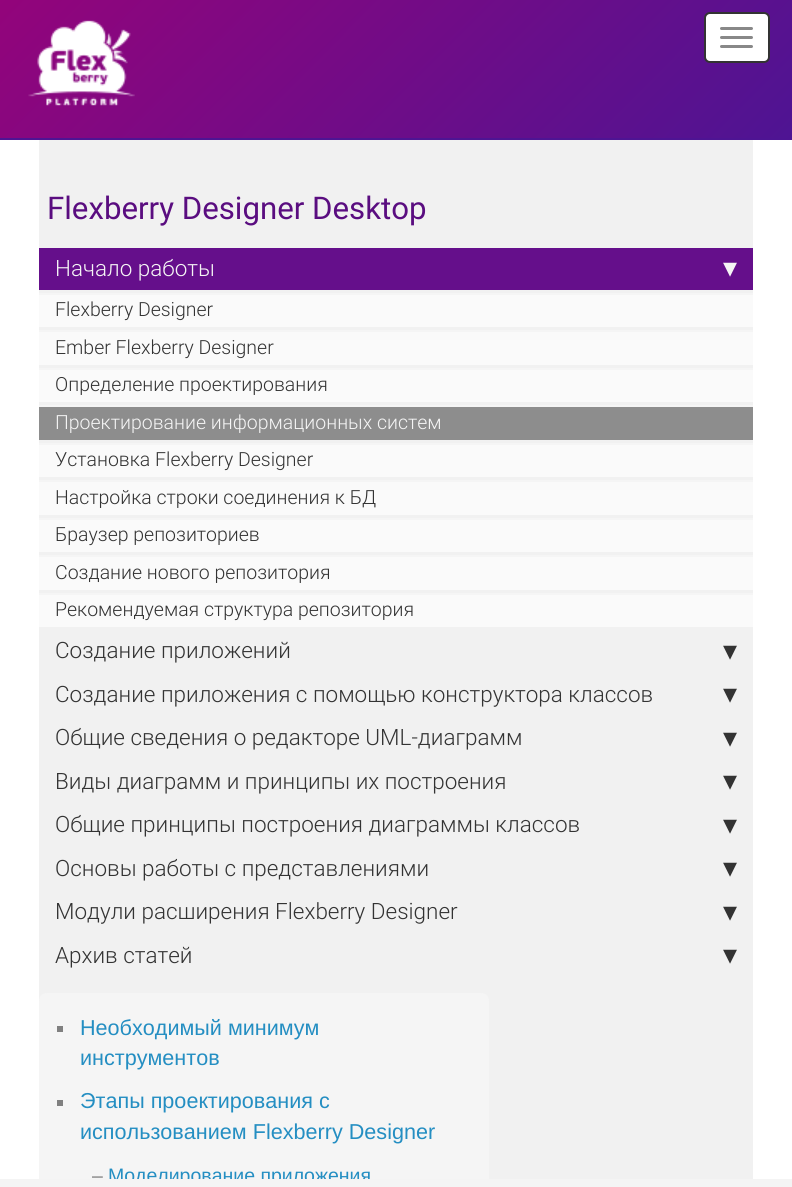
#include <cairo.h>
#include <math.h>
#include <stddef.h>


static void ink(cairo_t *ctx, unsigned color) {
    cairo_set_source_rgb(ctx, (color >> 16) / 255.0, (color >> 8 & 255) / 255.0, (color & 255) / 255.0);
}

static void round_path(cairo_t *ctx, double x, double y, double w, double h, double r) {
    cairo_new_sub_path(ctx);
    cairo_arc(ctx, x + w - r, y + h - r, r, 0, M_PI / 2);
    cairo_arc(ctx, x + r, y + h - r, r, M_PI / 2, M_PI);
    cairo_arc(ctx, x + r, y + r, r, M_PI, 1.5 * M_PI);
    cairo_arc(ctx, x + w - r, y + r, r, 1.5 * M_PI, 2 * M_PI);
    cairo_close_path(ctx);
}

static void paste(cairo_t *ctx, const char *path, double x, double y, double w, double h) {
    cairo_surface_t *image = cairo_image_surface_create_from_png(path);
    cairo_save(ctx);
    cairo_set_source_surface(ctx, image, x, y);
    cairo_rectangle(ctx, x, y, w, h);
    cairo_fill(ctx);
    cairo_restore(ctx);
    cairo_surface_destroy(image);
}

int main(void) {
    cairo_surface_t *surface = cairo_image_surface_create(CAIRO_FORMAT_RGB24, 792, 1187);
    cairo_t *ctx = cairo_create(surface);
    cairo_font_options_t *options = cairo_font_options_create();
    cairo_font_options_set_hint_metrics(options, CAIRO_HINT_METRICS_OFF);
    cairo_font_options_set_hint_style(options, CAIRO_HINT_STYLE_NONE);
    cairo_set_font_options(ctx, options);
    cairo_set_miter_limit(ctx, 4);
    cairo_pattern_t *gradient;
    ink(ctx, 0xFFFFFF);
    cairo_paint(ctx);
    gradient = cairo_pattern_create_linear(163, -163, 629, 302);
    cairo_pattern_add_color_stop_rgba(gradient, 0, 0.576, 0.016, 0.482, 1);
    cairo_pattern_add_color_stop_rgba(gradient, 1, 0.306, 0.078, 0.576, 1);
    cairo_set_source(ctx, gradient);
    cairo_pattern_destroy(gradient);
    cairo_rectangle(ctx, 0, 0, 792, 138);
    cairo_fill(ctx);
    ink(ctx, 0x4E1493);
    cairo_rectangle(ctx, 0, 138, 792, 2);
    cairo_fill(ctx);
    paste(ctx, "media/1.png", 28, 20, 107, 86);
    ink(ctx, 0xFFFFFF);
    round_path(ctx, 705, 13, 64, 49, 5);
    cairo_fill_preserve(ctx);
    ink(ctx, 0x333333);
    cairo_stroke(ctx);
    ink(ctx, 0x888888);
    round_path(ctx, 720, 27, 33, 3, 1.5);
    cairo_fill(ctx);
    round_path(ctx, 720, 36, 33, 3, 1.5);
    cairo_fill(ctx);
    round_path(ctx, 720, 45, 33, 3, 1.5);
    cairo_fill(ctx);
    ink(ctx, 0xF1F1F1);
    cairo_rectangle(ctx, 39, 140, 714, 1039);
    cairo_fill(ctx);
    cairo_select_font_face(ctx, "Roboto", CAIRO_FONT_SLANT_NORMAL, CAIRO_FONT_WEIGHT_NORMAL);
    cairo_set_font_size(ctx, 31.25);
    ink(ctx, 0x5A0D80);
    cairo_move_to(ctx, 47, 219);
    cairo_show_text(ctx, "Flexberry Designer Desktop");
    ink(ctx, 0x650F8B);
    cairo_rectangle(ctx, 39, 248, 714, 42);
    cairo_fill(ctx);
    cairo_select_font_face(ctx, "Roboto Light", CAIRO_FONT_SLANT_NORMAL, CAIRO_FONT_WEIGHT_NORMAL);
    cairo_set_font_size(ctx, 22.5);
    ink(ctx, 0xF5F5F5);
    cairo_move_to(ctx, 55, 276);
    cairo_show_text(ctx, "Начало работы");
    cairo_select_font_face(ctx, "DejaVu Sans", CAIRO_FONT_SLANT_NORMAL, CAIRO_FONT_WEIGHT_NORMAL);
    cairo_set_font_size(ctx, 28);
    cairo_move_to(ctx, 723, 277);
    cairo_show_text(ctx, "▾");
    ink(ctx, 0xFAFAFA);
    cairo_rectangle(ctx, 39, 295, 714, 32);
    cairo_fill(ctx);
    ink(ctx, 0xF5F5F5);
    cairo_rectangle(ctx, 39, 293, 714, 2);
    cairo_fill(ctx);
    cairo_select_font_face(ctx, "Roboto Light", CAIRO_FONT_SLANT_NORMAL, CAIRO_FONT_WEIGHT_NORMAL);
    cairo_set_font_size(ctx, 19.5);
    ink(ctx, 0x333333);
    cairo_move_to(ctx, 55, 316);
    cairo_show_text(ctx, "Flexberry Designer");
    ink(ctx, 0xFAFAFA);
    cairo_rectangle(ctx, 39, 332, 714, 33);
    cairo_fill(ctx);
    ink(ctx, 0xF5F5F5);
    cairo_rectangle(ctx, 39, 330, 714, 2);
    cairo_fill(ctx);
    ink(ctx, 0x333333);
    cairo_move_to(ctx, 55, 354);
    cairo_show_text(ctx, "Ember Flexberry Designer");
    ink(ctx, 0xFAFAFA);
    cairo_rectangle(ctx, 39, 370, 714, 32);
    cairo_fill(ctx);
    ink(ctx, 0xF5F5F5);
    cairo_rectangle(ctx, 39, 368, 714, 2);
    cairo_fill(ctx);
    ink(ctx, 0x333333);
    cairo_move_to(ctx, 55, 391);
    cairo_show_text(ctx, "Определение проектирования");
    ink(ctx, 0x8D8D8D);
    cairo_rectangle(ctx, 39, 407, 714, 33);
    cairo_fill(ctx);
    ink(ctx, 0xF5F5F5);
    cairo_rectangle(ctx, 39, 405, 714, 2);
    cairo_fill(ctx);
    cairo_move_to(ctx, 55, 429);
    cairo_show_text(ctx, "Проектирование информационных систем");
    ink(ctx, 0xFAFAFA);
    cairo_rectangle(ctx, 39, 445, 714, 32);
    cairo_fill(ctx);
    ink(ctx, 0xF5F5F5);
    cairo_rectangle(ctx, 39, 443, 714, 2);
    cairo_fill(ctx);
    ink(ctx, 0x333333);
    cairo_move_to(ctx, 55, 466);
    cairo_show_text(ctx, "Установка Flexberry Designer");
    ink(ctx, 0xFAFAFA);
    cairo_rectangle(ctx, 39, 482, 714, 33);
    cairo_fill(ctx);
    ink(ctx, 0xF5F5F5);
    cairo_rectangle(ctx, 39, 480, 714, 2);
    cairo_fill(ctx);
    ink(ctx, 0x333333);
    cairo_move_to(ctx, 55, 504);
    cairo_show_text(ctx, "Настройка строки соединения к БД");
    ink(ctx, 0xFAFAFA);
    cairo_rectangle(ctx, 39, 520, 714, 32);
    cairo_fill(ctx);
    ink(ctx, 0xF5F5F5);
    cairo_rectangle(ctx, 39, 518, 714, 2);
    cairo_fill(ctx);
    ink(ctx, 0x333333);
    cairo_move_to(ctx, 55, 541);
    cairo_show_text(ctx, "Браузер репозиториев");
    ink(ctx, 0xFAFAFA);
    cairo_rectangle(ctx, 39, 557, 714, 33);
    cairo_fill(ctx);
    ink(ctx, 0xF5F5F5);
    cairo_rectangle(ctx, 39, 555, 714, 2);
    cairo_fill(ctx);
    ink(ctx, 0x333333);
    cairo_move_to(ctx, 55, 579);
    cairo_show_text(ctx, "Создание нового репозитория");
    ink(ctx, 0xFAFAFA);
    cairo_rectangle(ctx, 39, 595, 714, 32);
    cairo_fill(ctx);
    ink(ctx, 0xF5F5F5);
    cairo_rectangle(ctx, 39, 593, 714, 2);
    cairo_fill(ctx);
    ink(ctx, 0x333333);
    cairo_move_to(ctx, 55, 616);
    cairo_show_text(ctx, "Рекомендуемая структура репозитория");
    cairo_set_font_size(ctx, 22.5);
    cairo_move_to(ctx, 55, 658);
    cairo_show_text(ctx, "Создание приложений");
    cairo_select_font_face(ctx, "DejaVu Sans", CAIRO_FONT_SLANT_NORMAL, CAIRO_FONT_WEIGHT_NORMAL);
    cairo_set_font_size(ctx, 28);
    cairo_move_to(ctx, 723, 660);
    cairo_show_text(ctx, "▾");
    cairo_select_font_face(ctx, "Roboto Light", CAIRO_FONT_SLANT_NORMAL, CAIRO_FONT_WEIGHT_NORMAL);
    cairo_set_font_size(ctx, 22.5);
    cairo_move_to(ctx, 55, 702);
    cairo_show_text(ctx, "Создание приложения с помощью конструктора классов");
    cairo_select_font_face(ctx, "DejaVu Sans", CAIRO_FONT_SLANT_NORMAL, CAIRO_FONT_WEIGHT_NORMAL);
    cairo_set_font_size(ctx, 28);
    cairo_move_to(ctx, 723, 703);
    cairo_show_text(ctx, "▾");
    cairo_select_font_face(ctx, "Roboto Light", CAIRO_FONT_SLANT_NORMAL, CAIRO_FONT_WEIGHT_NORMAL);
    cairo_set_font_size(ctx, 22.5);
    cairo_move_to(ctx, 55, 745);
    cairo_show_text(ctx, "Общие сведения о редакторе UML-диаграмм");
    cairo_select_font_face(ctx, "DejaVu Sans", CAIRO_FONT_SLANT_NORMAL, CAIRO_FONT_WEIGHT_NORMAL);
    cairo_set_font_size(ctx, 28);
    cairo_move_to(ctx, 723, 747);
    cairo_show_text(ctx, "▾");
    cairo_select_font_face(ctx, "Roboto Light", CAIRO_FONT_SLANT_NORMAL, CAIRO_FONT_WEIGHT_NORMAL);
    cairo_set_font_size(ctx, 22.5);
    cairo_move_to(ctx, 55, 789);
    cairo_show_text(ctx, "Виды диаграмм и принципы их построения");
    cairo_select_font_face(ctx, "DejaVu Sans", CAIRO_FONT_SLANT_NORMAL, CAIRO_FONT_WEIGHT_NORMAL);
    cairo_set_font_size(ctx, 28);
    cairo_move_to(ctx, 723, 790);
    cairo_show_text(ctx, "▾");
    cairo_select_font_face(ctx, "Roboto Light", CAIRO_FONT_SLANT_NORMAL, CAIRO_FONT_WEIGHT_NORMAL);
    cairo_set_font_size(ctx, 22.5);
    cairo_move_to(ctx, 55, 832);
    cairo_show_text(ctx, "Общие принципы построения диаграммы классов");
    cairo_select_font_face(ctx, "DejaVu Sans", CAIRO_FONT_SLANT_NORMAL, CAIRO_FONT_WEIGHT_NORMAL);
    cairo_set_font_size(ctx, 28);
    cairo_move_to(ctx, 723, 834);
    cairo_show_text(ctx, "▾");
    cairo_select_font_face(ctx, "Roboto Light", CAIRO_FONT_SLANT_NORMAL, CAIRO_FONT_WEIGHT_NORMAL);
    cairo_set_font_size(ctx, 22.5);
    cairo_move_to(ctx, 55, 876);
    cairo_show_text(ctx, "Основы работы с представлениями");
    cairo_select_font_face(ctx, "DejaVu Sans", CAIRO_FONT_SLANT_NORMAL, CAIRO_FONT_WEIGHT_NORMAL);
    cairo_set_font_size(ctx, 28);
    cairo_move_to(ctx, 723, 877);
    cairo_show_text(ctx, "▾");
    cairo_select_font_face(ctx, "Roboto Light", CAIRO_FONT_SLANT_NORMAL, CAIRO_FONT_WEIGHT_NORMAL);
    cairo_set_font_size(ctx, 22.5);
    cairo_move_to(ctx, 55, 919);
    cairo_show_text(ctx, "Модули расширения Flexberry Designer");
    cairo_select_font_face(ctx, "DejaVu Sans", CAIRO_FONT_SLANT_NORMAL, CAIRO_FONT_WEIGHT_NORMAL);
    cairo_set_font_size(ctx, 28);
    cairo_move_to(ctx, 723, 921);
    cairo_show_text(ctx, "▾");
    cairo_select_font_face(ctx, "Roboto Light", CAIRO_FONT_SLANT_NORMAL, CAIRO_FONT_WEIGHT_NORMAL);
    cairo_set_font_size(ctx, 22.5);
    cairo_move_to(ctx, 55, 963);
    cairo_show_text(ctx, "Архив статей");
    cairo_select_font_face(ctx, "DejaVu Sans", CAIRO_FONT_SLANT_NORMAL, CAIRO_FONT_WEIGHT_NORMAL);
    cairo_set_font_size(ctx, 28);
    cairo_move_to(ctx, 723, 964);
    cairo_show_text(ctx, "▾");
    ink(ctx, 0xF5F5F5);
    cairo_new_path(ctx);
    cairo_move_to(ctx, 47, 993);
    cairo_line_to(ctx, 481, 993);
    cairo_curve_to(ctx, 485.5, 993, 489, 996.5, 489, 1001);
    cairo_line_to(ctx, 489, 1179);
    cairo_line_to(ctx, 39, 1179);
    cairo_line_to(ctx, 39, 1001);
    cairo_curve_to(ctx, 39, 996.5, 42.5, 993, 47, 993);
    cairo_close_path(ctx);
    cairo_fill(ctx);
    ink(ctx, 0x808080);
    cairo_rectangle(ctx, 57, 1026, 6, 6);
    cairo_fill(ctx);
    cairo_select_font_face(ctx, "Liberation Sans", CAIRO_FONT_SLANT_NORMAL, CAIRO_FONT_WEIGHT_NORMAL);
    cairo_set_font_size(ctx, 21.6);
    ink(ctx, 0x248EC2);
    cairo_move_to(ctx, 80, 1035);
    cairo_show_text(ctx, "Необходимый минимум");
    cairo_move_to(ctx, 80, 1065);
    cairo_show_text(ctx, "инструментов");
    ink(ctx, 0x808080);
    cairo_rectangle(ctx, 57, 1100, 6, 6);
    cairo_fill(ctx);
    ink(ctx, 0x248EC2);
    cairo_move_to(ctx, 80, 1108);
    cairo_show_text(ctx, "Этапы проектирования с");
    cairo_move_to(ctx, 80, 1139);
    cairo_show_text(ctx, "использованием Flexberry Designer");
    cairo_set_font_size(ctx, 19.5);
    ink(ctx, 0x808080);
    cairo_move_to(ctx, 92, 1182);
    cairo_show_text(ctx, "–");
    cairo_save(ctx);
    cairo_rectangle(ctx, 0, 126, 792, 1053);
    cairo_clip(ctx);
    ink(ctx, 0x248EC2);
    cairo_move_to(ctx, 108, 1182);
    cairo_show_text(ctx, "Моделирование приложения");
    cairo_restore(ctx);
    ink(ctx, 0xF4F4F4);
    cairo_rectangle(ctx, 0, 1179, 792, 8);
    cairo_fill(ctx);
    cairo_surface_write_to_png(surface, "image.png");
    cairo_font_options_destroy(options);
    cairo_destroy(ctx);
    cairo_surface_destroy(surface);
    return 0;
}
